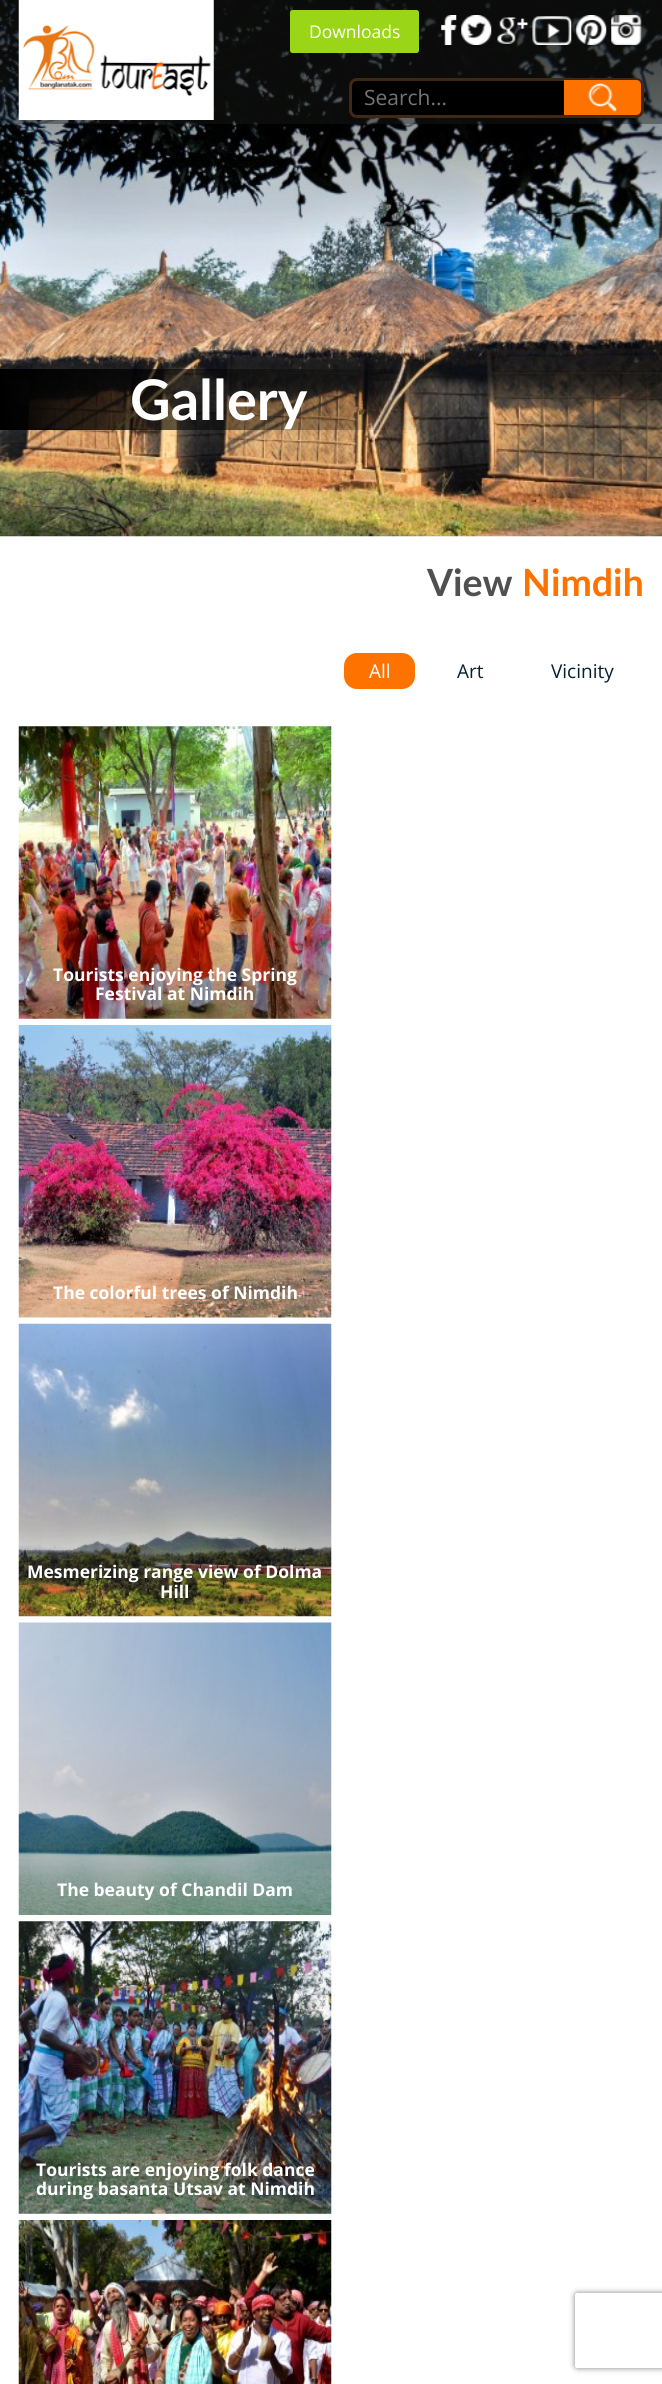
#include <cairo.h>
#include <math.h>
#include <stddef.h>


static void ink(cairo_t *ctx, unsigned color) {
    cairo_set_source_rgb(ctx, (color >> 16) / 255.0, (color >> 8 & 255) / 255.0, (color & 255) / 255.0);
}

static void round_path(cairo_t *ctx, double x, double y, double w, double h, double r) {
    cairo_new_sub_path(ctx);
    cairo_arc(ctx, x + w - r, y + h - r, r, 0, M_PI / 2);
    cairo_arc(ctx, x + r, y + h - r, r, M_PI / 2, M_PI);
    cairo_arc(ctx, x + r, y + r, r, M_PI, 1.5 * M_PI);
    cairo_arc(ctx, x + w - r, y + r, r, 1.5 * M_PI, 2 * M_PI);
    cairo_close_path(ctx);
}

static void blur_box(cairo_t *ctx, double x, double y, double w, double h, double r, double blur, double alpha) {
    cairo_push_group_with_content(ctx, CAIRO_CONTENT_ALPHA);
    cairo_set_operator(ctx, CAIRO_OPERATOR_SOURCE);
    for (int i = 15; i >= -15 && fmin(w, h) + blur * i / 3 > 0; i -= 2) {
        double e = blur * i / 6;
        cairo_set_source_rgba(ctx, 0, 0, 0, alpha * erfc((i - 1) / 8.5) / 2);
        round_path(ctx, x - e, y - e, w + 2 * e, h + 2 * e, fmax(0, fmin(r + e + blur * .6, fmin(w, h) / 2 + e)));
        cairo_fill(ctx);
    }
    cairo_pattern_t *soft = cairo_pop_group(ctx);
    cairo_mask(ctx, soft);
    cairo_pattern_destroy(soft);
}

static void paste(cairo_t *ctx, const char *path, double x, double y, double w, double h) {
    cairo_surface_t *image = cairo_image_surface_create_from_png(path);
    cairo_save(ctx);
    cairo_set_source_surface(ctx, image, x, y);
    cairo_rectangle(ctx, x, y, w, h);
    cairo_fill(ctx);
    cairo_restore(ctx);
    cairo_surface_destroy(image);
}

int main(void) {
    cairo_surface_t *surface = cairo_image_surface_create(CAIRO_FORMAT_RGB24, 662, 2384);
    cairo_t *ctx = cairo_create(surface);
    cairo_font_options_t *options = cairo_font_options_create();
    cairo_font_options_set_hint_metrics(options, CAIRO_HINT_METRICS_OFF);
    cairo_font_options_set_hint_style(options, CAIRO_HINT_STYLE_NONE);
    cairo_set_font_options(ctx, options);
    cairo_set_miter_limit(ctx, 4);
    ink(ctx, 0xFFFFFF);
    cairo_paint(ctx);
    paste(ctx, "media/9.png", 0, 0, 662, 537);
    cairo_set_source_rgba(ctx, 0.102, 0.114, 0.102, 0.4);
    cairo_rectangle(ctx, 0, 0, 662, 124);
    cairo_fill(ctx);
    paste(ctx, "media/1.png", 18, 0, 196, 120);
    ink(ctx, 0x9AD617);
    round_path(ctx, 290, 10, 129, 43, 2.5);
    cairo_fill(ctx);
    cairo_select_font_face(ctx, "Open Sans", CAIRO_FONT_SLANT_NORMAL, CAIRO_FONT_WEIGHT_NORMAL);
    cairo_set_font_size(ctx, 17.5);
    ink(ctx, 0xFFFFFF);
    cairo_move_to(ctx, 309, 38);
    cairo_show_text(ctx, "Downloads");
    paste(ctx, "media/2.png", 441, 15, 16, 30);
    paste(ctx, "media/3.png", 461, 15, 31, 30);
    paste(ctx, "media/4.png", 497, 17, 32, 27);
    paste(ctx, "media/5.png", 532, 16, 40, 29);
    paste(ctx, "media/6.png", 576, 15, 31, 30);
    paste(ctx, "media/7.png", 611, 15, 31, 30);
    ink(ctx, 0x000000);
    round_path(ctx, 350.5, 79.5, 292, 37, 6.5);
    cairo_fill_preserve(ctx);
    ink(ctx, 0x402816);
    cairo_set_line_width(ctx, 3);
    cairo_stroke(ctx);
    cairo_set_font_size(ctx, 21);
    ink(ctx, 0x757575);
    cairo_move_to(ctx, 364, 105);
    cairo_show_text(ctx, "Search...");
    ink(ctx, 0xFE7200);
    cairo_new_path(ctx);
    cairo_move_to(ctx, 564, 80);
    cairo_line_to(ctx, 636, 80);
    cairo_curve_to(ctx, 639, 80, 641, 82, 641, 85);
    cairo_line_to(ctx, 641, 110);
    cairo_curve_to(ctx, 641, 113, 639, 115, 636, 115);
    cairo_line_to(ctx, 564, 115);
    cairo_close_path(ctx);
    cairo_fill(ctx);
    paste(ctx, "media/8.png", 588, 83, 29, 29);
    cairo_select_font_face(ctx, "Lato", CAIRO_FONT_SLANT_NORMAL, CAIRO_FONT_WEIGHT_BOLD);
    cairo_set_font_size(ctx, 56);
    ink(ctx, 0xFFFFFF);
    cairo_move_to(ctx, 130, 420);
    cairo_show_text(ctx, "Gallery");
    cairo_set_font_size(ctx, 37.5);
    ink(ctx, 0x505050);
    cairo_move_to(ctx, 427, 596);
    cairo_show_text(ctx, "View");
    ink(ctx, 0xFE7200);
    cairo_move_to(ctx, 522, 596);
    cairo_show_text(ctx, "Nimdih");
    round_path(ctx, 344, 653, 71, 36, 13);
    cairo_fill(ctx);
    cairo_select_font_face(ctx, "Open Sans", CAIRO_FONT_SLANT_NORMAL, CAIRO_FONT_WEIGHT_NORMAL);
    cairo_set_font_size(ctx, 19);
    ink(ctx, 0xFFFFFF);
    cairo_move_to(ctx, 369, 678);
    cairo_show_text(ctx, "All");
    ink(ctx, 0x062033);
    cairo_move_to(ctx, 457, 678);
    cairo_show_text(ctx, "Art");
    cairo_move_to(ctx, 551, 678);
    cairo_show_text(ctx, "Vicinity");
    paste(ctx, "media/10.png", 18, 726, 314, 293);
    cairo_select_font_face(ctx, "Open Sans", CAIRO_FONT_SLANT_NORMAL, CAIRO_FONT_WEIGHT_BOLD);
    cairo_set_font_size(ctx, 17.5);
    ink(ctx, 0xFFFFFF);
    cairo_move_to(ctx, 53, 981);
    cairo_show_text(ctx, "Tourists enjoying the Spring");
    cairo_move_to(ctx, 95, 1000);
    cairo_show_text(ctx, "Festival at Nimdih");
    paste(ctx, "media/11.png", 18, 1025, 314, 293);
    cairo_move_to(ctx, 53, 1299);
    cairo_show_text(ctx, "The colorful trees of Nimdih");
    paste(ctx, "media/12.png", 18, 1323, 314, 294);
    cairo_move_to(ctx, 27, 1578);
    cairo_show_text(ctx, "Mesmerizing range view of Dolma");
    cairo_move_to(ctx, 160, 1598);
    cairo_show_text(ctx, "Hill");
    paste(ctx, "media/13.png", 18, 1622, 314, 293);
    cairo_move_to(ctx, 57, 1896);
    cairo_show_text(ctx, "The beauty of Chandil Dam");
    paste(ctx, "media/14.png", 18, 1921, 314, 293);
    cairo_move_to(ctx, 36, 2176);
    cairo_show_text(ctx, "Tourists are enjoying folk dance");
    cairo_move_to(ctx, 36, 2195);
    cairo_show_text(ctx, "during basanta Utsav at Nimdih");
    paste(ctx, "media/15.png", 18, 2220, 314, 164);
    cairo_save(ctx);
    cairo_set_fill_rule(ctx, CAIRO_FILL_RULE_EVEN_ODD);
    cairo_new_path(ctx);
    cairo_move_to(ctx, 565, 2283);
    cairo_line_to(ctx, 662, 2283);
    cairo_line_to(ctx, 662, 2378);
    cairo_line_to(ctx, 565, 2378);
    cairo_close_path(ctx);
    cairo_move_to(ctx, 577.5, 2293);
    cairo_line_to(ctx, 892.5, 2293);
    cairo_curve_to(ctx, 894, 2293, 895, 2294, 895, 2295.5);
    cairo_line_to(ctx, 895, 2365.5);
    cairo_curve_to(ctx, 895, 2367, 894, 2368, 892.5, 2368);
    cairo_line_to(ctx, 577.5, 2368);
    cairo_curve_to(ctx, 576, 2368, 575, 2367, 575, 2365.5);
    cairo_line_to(ctx, 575, 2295.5);
    cairo_curve_to(ctx, 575, 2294, 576, 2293, 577.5, 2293);
    cairo_close_path(ctx);
    cairo_clip(ctx);
    ink(ctx, 0x808080);
    blur_box(ctx, 575, 2293, 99, 75, 2.5, 3, 1);
    cairo_restore(ctx);
    cairo_surface_write_to_png(surface, "image.png");
    cairo_font_options_destroy(options);
    cairo_destroy(ctx);
    cairo_surface_destroy(surface);
    return 0;
}
